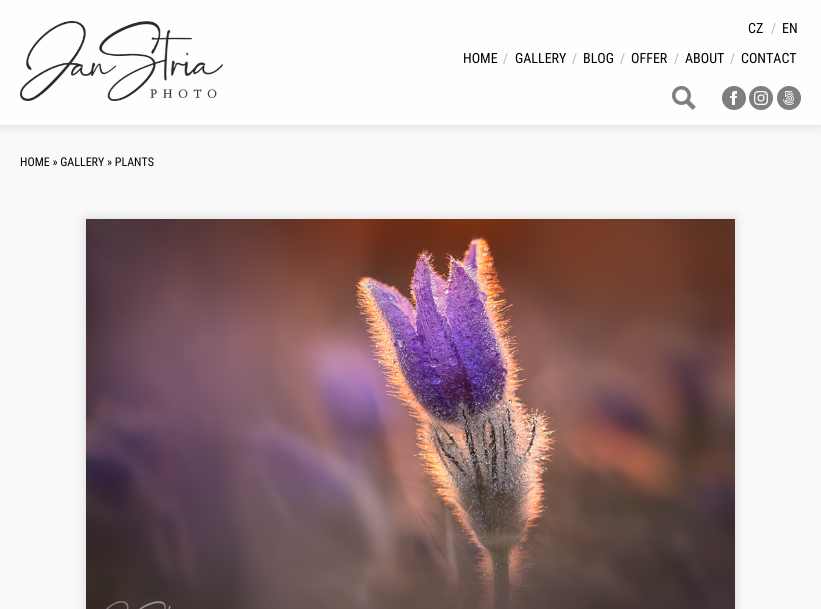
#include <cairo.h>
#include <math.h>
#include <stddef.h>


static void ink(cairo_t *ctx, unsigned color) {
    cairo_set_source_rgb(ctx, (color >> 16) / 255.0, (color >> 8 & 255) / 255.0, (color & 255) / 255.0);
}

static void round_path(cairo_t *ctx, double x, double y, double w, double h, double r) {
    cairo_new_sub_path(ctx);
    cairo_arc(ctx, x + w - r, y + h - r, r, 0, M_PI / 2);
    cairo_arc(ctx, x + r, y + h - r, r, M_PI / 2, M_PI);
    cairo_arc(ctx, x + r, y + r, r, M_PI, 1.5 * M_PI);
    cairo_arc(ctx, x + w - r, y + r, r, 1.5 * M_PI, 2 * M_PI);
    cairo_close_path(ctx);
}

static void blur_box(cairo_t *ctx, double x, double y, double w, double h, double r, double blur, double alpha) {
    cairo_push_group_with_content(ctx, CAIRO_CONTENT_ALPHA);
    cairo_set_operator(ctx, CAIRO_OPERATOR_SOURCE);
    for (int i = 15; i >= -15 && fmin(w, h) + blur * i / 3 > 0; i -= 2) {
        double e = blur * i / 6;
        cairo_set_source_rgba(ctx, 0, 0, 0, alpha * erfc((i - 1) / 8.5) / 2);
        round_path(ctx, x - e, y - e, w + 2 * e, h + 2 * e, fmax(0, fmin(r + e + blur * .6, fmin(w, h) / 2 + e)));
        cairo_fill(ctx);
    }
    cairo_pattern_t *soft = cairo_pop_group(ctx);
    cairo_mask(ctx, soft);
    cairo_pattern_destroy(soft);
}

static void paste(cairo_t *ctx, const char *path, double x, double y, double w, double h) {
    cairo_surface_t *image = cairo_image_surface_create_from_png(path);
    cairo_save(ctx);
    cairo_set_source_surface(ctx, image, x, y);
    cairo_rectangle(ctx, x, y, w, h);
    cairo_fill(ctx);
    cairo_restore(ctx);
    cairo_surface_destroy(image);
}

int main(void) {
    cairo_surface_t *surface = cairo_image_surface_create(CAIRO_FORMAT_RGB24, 821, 609);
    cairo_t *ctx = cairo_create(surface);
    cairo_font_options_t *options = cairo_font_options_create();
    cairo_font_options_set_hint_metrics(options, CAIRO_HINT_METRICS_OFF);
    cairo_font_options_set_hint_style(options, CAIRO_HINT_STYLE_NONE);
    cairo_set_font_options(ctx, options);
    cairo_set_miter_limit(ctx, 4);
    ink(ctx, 0xF9F9F9);
    cairo_paint(ctx);
    ink(ctx, 0x464646);
    blur_box(ctx, 0, 0, 821, 125, 0, 5, 0.2);
    ink(ctx, 0xFEFEFE);
    cairo_rectangle(ctx, 0, 0, 821, 125);
    cairo_fill(ctx);
    paste(ctx, "media/1.png", 20, 21, 203, 80);
    cairo_select_font_face(ctx, "Roboto Condensed", CAIRO_FONT_SLANT_NORMAL, CAIRO_FONT_WEIGHT_NORMAL);
    cairo_set_font_size(ctx, 14);
    ink(ctx, 0x000000);
    cairo_move_to(ctx, 748, 33);
    cairo_show_text(ctx, "CZ");
    ink(ctx, 0xB7B7B7);
    cairo_move_to(ctx, 771, 33);
    cairo_show_text(ctx, "/");
    ink(ctx, 0x000000);
    cairo_move_to(ctx, 782, 33);
    cairo_show_text(ctx, "EN");
    cairo_move_to(ctx, 463, 63);
    cairo_show_text(ctx, "HOME");
    ink(ctx, 0xB7B7B7);
    cairo_move_to(ctx, 503, 63);
    cairo_show_text(ctx, "/");
    ink(ctx, 0x000000);
    cairo_move_to(ctx, 515, 63);
    cairo_show_text(ctx, "GALLERY");
    ink(ctx, 0xB7B7B7);
    cairo_move_to(ctx, 572, 63);
    cairo_show_text(ctx, "/");
    ink(ctx, 0x000000);
    cairo_move_to(ctx, 583, 63);
    cairo_show_text(ctx, "BLOG");
    ink(ctx, 0xB7B7B7);
    cairo_move_to(ctx, 620, 63);
    cairo_show_text(ctx, "/");
    ink(ctx, 0x000000);
    cairo_move_to(ctx, 631, 63);
    cairo_show_text(ctx, "OFFER");
    ink(ctx, 0xB7B7B7);
    cairo_move_to(ctx, 674, 63);
    cairo_show_text(ctx, "/");
    ink(ctx, 0x000000);
    cairo_move_to(ctx, 685, 63);
    cairo_show_text(ctx, "ABOUT");
    ink(ctx, 0xB7B7B7);
    cairo_move_to(ctx, 730, 63);
    cairo_show_text(ctx, "/");
    ink(ctx, 0x000000);
    cairo_move_to(ctx, 741, 63);
    cairo_show_text(ctx, "CONTACT");
    paste(ctx, "media/2.png", 672, 86, 24, 24);
    paste(ctx, "media/3.png", 722, 86, 24, 24);
    paste(ctx, "media/4.png", 749, 86, 24, 24);
    paste(ctx, "media/5.png", 777, 86, 24, 24);
    cairo_set_font_size(ctx, 12);
    cairo_move_to(ctx, 20, 166);
    cairo_show_text(ctx, "HOME » GALLERY » PLANTS");
    ink(ctx, 0x323232);
    blur_box(ctx, 86, 219, 649, 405, 0, 5, 0.2);
    paste(ctx, "media/6.png", 86, 219, 649, 390);
    cairo_surface_write_to_png(surface, "image.png");
    cairo_font_options_destroy(options);
    cairo_destroy(ctx);
    cairo_surface_destroy(surface);
    return 0;
}
